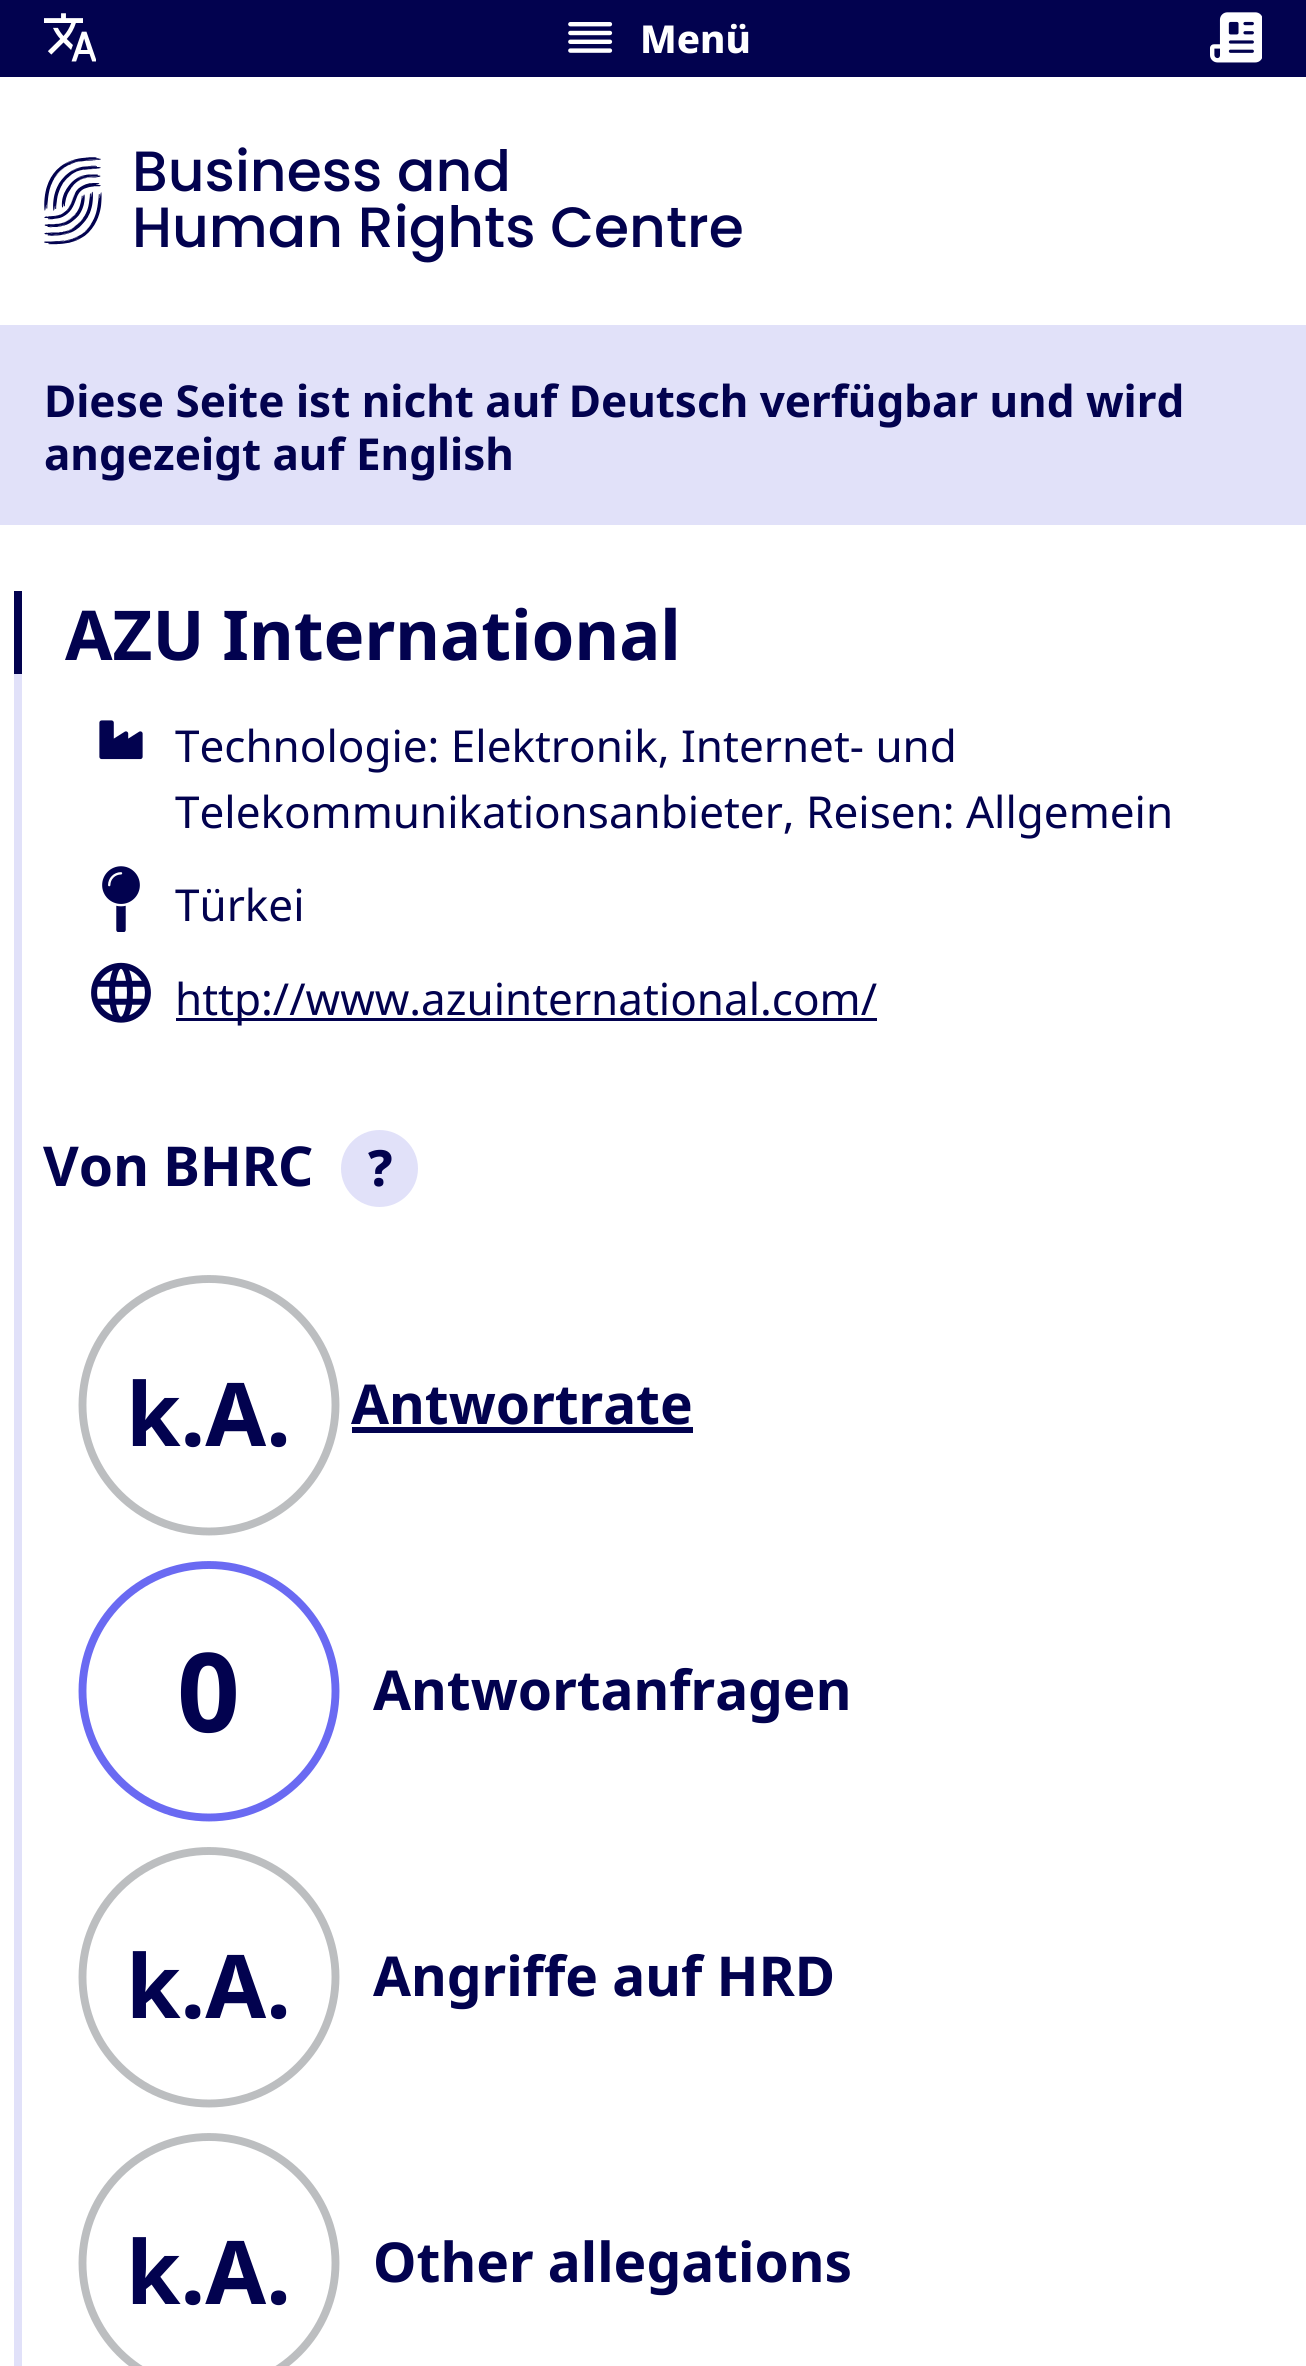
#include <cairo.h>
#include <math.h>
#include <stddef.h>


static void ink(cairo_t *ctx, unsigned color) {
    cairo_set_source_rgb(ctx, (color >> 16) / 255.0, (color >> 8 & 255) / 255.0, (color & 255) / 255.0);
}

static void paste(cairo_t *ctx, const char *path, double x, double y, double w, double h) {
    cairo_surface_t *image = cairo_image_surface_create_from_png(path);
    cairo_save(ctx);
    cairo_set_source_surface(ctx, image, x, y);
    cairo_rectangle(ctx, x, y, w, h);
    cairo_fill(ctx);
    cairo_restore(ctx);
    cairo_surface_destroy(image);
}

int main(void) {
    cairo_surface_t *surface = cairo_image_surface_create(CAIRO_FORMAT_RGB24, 1306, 2366);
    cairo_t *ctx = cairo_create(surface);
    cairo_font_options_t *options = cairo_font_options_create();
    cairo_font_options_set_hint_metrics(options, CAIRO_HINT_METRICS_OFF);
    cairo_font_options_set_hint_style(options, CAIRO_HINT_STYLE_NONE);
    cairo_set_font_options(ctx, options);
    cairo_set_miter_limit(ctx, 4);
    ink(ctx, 0xFFFFFF);
    cairo_paint(ctx);
    ink(ctx, 0x02024F);
    cairo_rectangle(ctx, 0, 0, 1306, 77);
    cairo_fill(ctx);
    paste(ctx, "media/1.png", 44, 13, 52, 49);
    paste(ctx, "media/2.png", 568, 22, 45, 31);
    cairo_select_font_face(ctx, "Noto Sans ExtraBold", CAIRO_FONT_SLANT_NORMAL, CAIRO_FONT_WEIGHT_NORMAL);
    cairo_set_font_size(ctx, 38.5);
    ink(ctx, 0xFFFFFF);
    cairo_move_to(ctx, 640, 53);
    cairo_show_text(ctx, "Menü");
    paste(ctx, "media/3.png", 1210, 12, 52, 51);
    paste(ctx, "media/4.png", 44, 157, 58, 88);
    cairo_select_font_face(ctx, "Poppins Medium", CAIRO_FONT_SLANT_NORMAL, CAIRO_FONT_WEIGHT_NORMAL);
    cairo_set_font_size(ctx, 56.75);
    ink(ctx, 0x02024F);
    cairo_move_to(ctx, 132, 191);
    cairo_show_text(ctx, "Business and");
    cairo_move_to(ctx, 132, 247);
    cairo_show_text(ctx, "Human Rights Centre");
    ink(ctx, 0xE1E1F9);
    cairo_rectangle(ctx, 0, 325, 1306, 200);
    cairo_fill(ctx);
    cairo_select_font_face(ctx, "Noto Sans", CAIRO_FONT_SLANT_NORMAL, CAIRO_FONT_WEIGHT_BOLD);
    cairo_set_font_size(ctx, 44);
    ink(ctx, 0x02024F);
    cairo_move_to(ctx, 44, 417);
    cairo_show_text(ctx, "Diese Seite ist nicht auf Deutsch verfügbar und wird");
    cairo_move_to(ctx, 44, 470);
    cairo_show_text(ctx, "angezeigt auf English");
    ink(ctx, 0xE1E1F9);
    cairo_rectangle(ctx, 14, 674, 8, 1692);
    cairo_fill(ctx);
    ink(ctx, 0x02024F);
    cairo_rectangle(ctx, 14, 591, 8, 83);
    cairo_fill(ctx);
    cairo_set_font_size(ctx, 68.75);
    cairo_move_to(ctx, 65, 660);
    cairo_show_text(ctx, "AZU International");
    paste(ctx, "media/5.png", 99, 720, 44, 40);
    cairo_select_font_face(ctx, "Noto Sans", CAIRO_FONT_SLANT_NORMAL, CAIRO_FONT_WEIGHT_NORMAL);
    cairo_set_font_size(ctx, 44);
    cairo_move_to(ctx, 175, 762);
    cairo_show_text(ctx, "Technologie: Elektronik, Internet- und");
    cairo_move_to(ctx, 175, 828);
    cairo_show_text(ctx, "Telekommunikationsanbieter, Reisen: Allgemein");
    paste(ctx, "media/6.png", 102, 866, 38, 66);
    cairo_move_to(ctx, 175, 921);
    cairo_show_text(ctx, "Türkei");
    paste(ctx, "media/7.png", 91, 962, 60, 61);
    cairo_rectangle(ctx, 176, 1018, 701, 3);
    cairo_fill(ctx);
    cairo_move_to(ctx, 175, 1015);
    cairo_show_text(ctx, "http://www.azuinternational.com/");
    cairo_select_font_face(ctx, "Noto Sans", CAIRO_FONT_SLANT_NORMAL, CAIRO_FONT_WEIGHT_BOLD);
    cairo_set_font_size(ctx, 55);
    cairo_move_to(ctx, 43, 1186);
    cairo_show_text(ctx, "Von BHRC");
    ink(ctx, 0xE1E1F9);
    cairo_new_path(ctx);
    cairo_arc(ctx, 379.5, 1168.5, 38.5, 0, 2 * M_PI);
    cairo_fill(ctx);
    cairo_select_font_face(ctx, "Noto Sans ExtraBold", CAIRO_FONT_SLANT_NORMAL, CAIRO_FONT_WEIGHT_NORMAL);
    cairo_set_font_size(ctx, 50);
    ink(ctx, 0x02024F);
    cairo_move_to(ctx, 368, 1186);
    cairo_show_text(ctx, "?");
    cairo_new_path(ctx);
    cairo_move_to(ctx, 209, 1279);
    cairo_curve_to(ctx, 279, 1279, 335.5, 1335.5, 335.5, 1405);
    cairo_curve_to(ctx, 335.5, 1475, 279, 1531.5, 209, 1531.5);
    cairo_curve_to(ctx, 139, 1531.5, 82.5, 1475, 82.5, 1405);
    cairo_curve_to(ctx, 82.5, 1335.5, 139, 1279, 209, 1279);
    ink(ctx, 0xBCBEC0);
    cairo_set_line_width(ctx, 7.9);
    cairo_set_line_cap(ctx, CAIRO_LINE_CAP_ROUND);
    cairo_stroke(ctx);
    cairo_select_font_face(ctx, "Noto Sans", CAIRO_FONT_SLANT_NORMAL, CAIRO_FONT_WEIGHT_BOLD);
    cairo_set_font_size(ctx, 88);
    ink(ctx, 0x02024F);
    cairo_move_to(ctx, 126, 1446);
    cairo_show_text(ctx, "k.A.");
    cairo_set_font_size(ctx, 55);
    cairo_move_to(ctx, 351, 1424);
    cairo_show_text(ctx, "Antwortrate");
    cairo_rectangle(ctx, 352, 1427, 341, 6);
    cairo_fill(ctx);
    cairo_new_path(ctx);
    cairo_move_to(ctx, 209, 1565);
    cairo_curve_to(ctx, 279, 1565, 335.5, 1621.5, 335.5, 1691);
    cairo_curve_to(ctx, 335.5, 1761, 279, 1817.5, 209, 1817.5);
    cairo_curve_to(ctx, 139, 1817.5, 82.5, 1761, 82.5, 1691);
    cairo_curve_to(ctx, 82.5, 1621.5, 139, 1565, 209, 1565);
    ink(ctx, 0x6A6AF2);
    cairo_stroke(ctx);
    cairo_set_font_size(ctx, 110);
    ink(ctx, 0x02024F);
    cairo_move_to(ctx, 177, 1732);
    cairo_show_text(ctx, "0");
    cairo_set_font_size(ctx, 55);
    cairo_move_to(ctx, 373, 1710);
    cairo_show_text(ctx, "Antwortanfragen");
    cairo_new_path(ctx);
    cairo_move_to(ctx, 209, 1851);
    cairo_curve_to(ctx, 279, 1851, 335.5, 1907.5, 335.5, 1977);
    cairo_curve_to(ctx, 335.5, 2047, 279, 2103.5, 209, 2103.5);
    cairo_curve_to(ctx, 139, 2103.5, 82.5, 2047, 82.5, 1977);
    cairo_curve_to(ctx, 82.5, 1907.5, 139, 1851, 209, 1851);
    ink(ctx, 0xBCBEC0);
    cairo_stroke(ctx);
    cairo_set_font_size(ctx, 88);
    ink(ctx, 0x02024F);
    cairo_move_to(ctx, 126, 2018);
    cairo_show_text(ctx, "k.A.");
    cairo_set_font_size(ctx, 55);
    cairo_move_to(ctx, 373, 1996);
    cairo_show_text(ctx, "Angriffe auf HRD");
    cairo_new_path(ctx);
    cairo_move_to(ctx, 209, 2137);
    cairo_curve_to(ctx, 279, 2137, 335.5, 2193.5, 335.5, 2263);
    cairo_curve_to(ctx, 335.5, 2333, 279, 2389.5, 209, 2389.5);
    cairo_curve_to(ctx, 139, 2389.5, 82.5, 2333, 82.5, 2263);
    cairo_curve_to(ctx, 82.5, 2193.5, 139, 2137, 209, 2137);
    ink(ctx, 0xBCBEC0);
    cairo_stroke(ctx);
    cairo_set_font_size(ctx, 88);
    ink(ctx, 0x02024F);
    cairo_move_to(ctx, 126, 2304);
    cairo_show_text(ctx, "k.A.");
    cairo_set_font_size(ctx, 55);
    cairo_move_to(ctx, 373, 2282);
    cairo_show_text(ctx, "Other allegations");
    cairo_surface_write_to_png(surface, "image.png");
    cairo_font_options_destroy(options);
    cairo_destroy(ctx);
    cairo_surface_destroy(surface);
    return 0;
}
